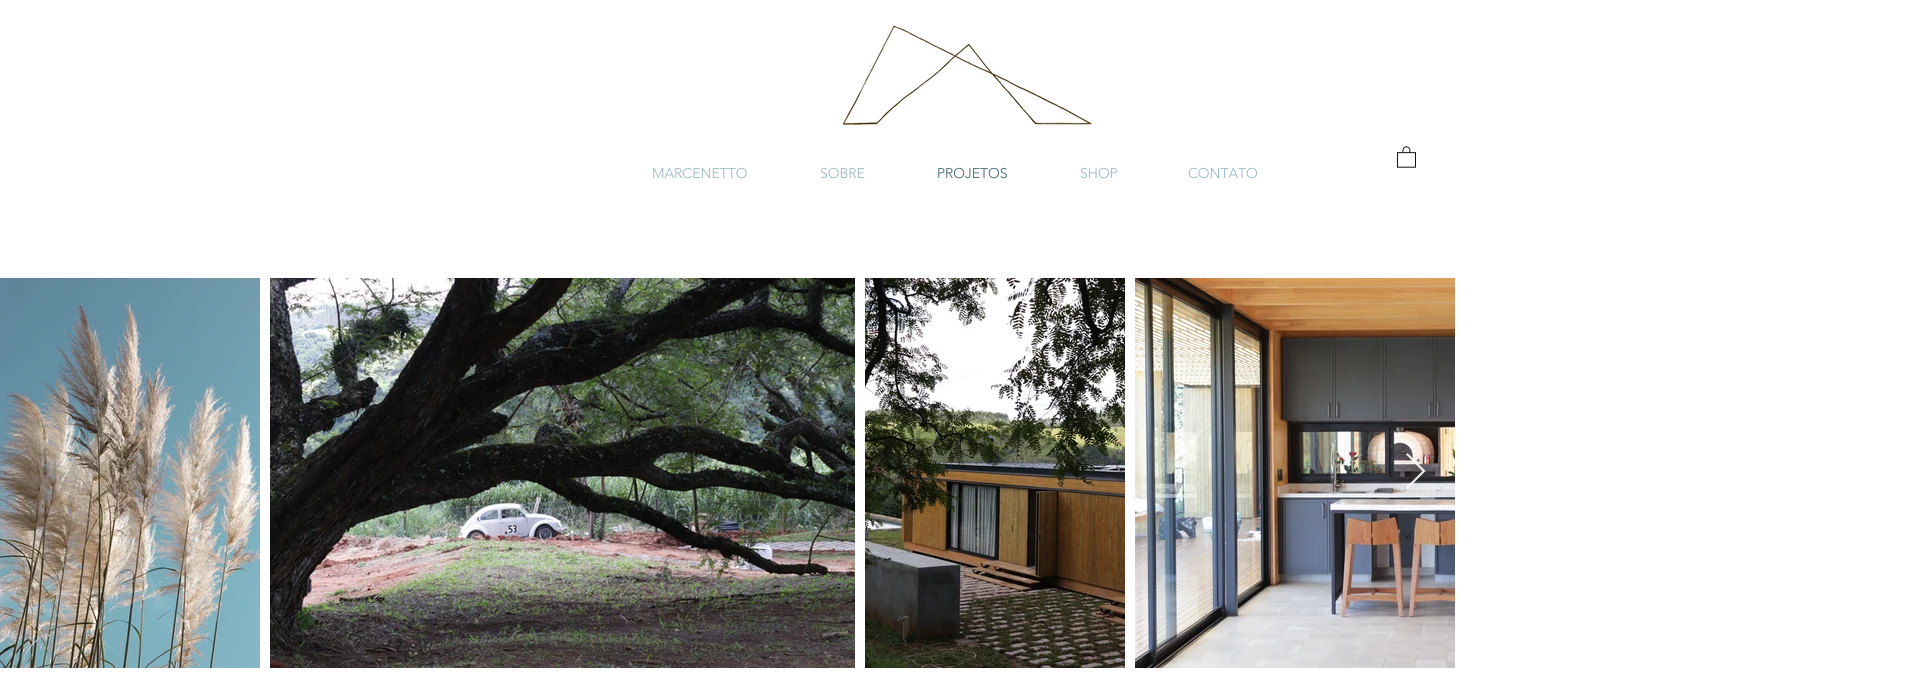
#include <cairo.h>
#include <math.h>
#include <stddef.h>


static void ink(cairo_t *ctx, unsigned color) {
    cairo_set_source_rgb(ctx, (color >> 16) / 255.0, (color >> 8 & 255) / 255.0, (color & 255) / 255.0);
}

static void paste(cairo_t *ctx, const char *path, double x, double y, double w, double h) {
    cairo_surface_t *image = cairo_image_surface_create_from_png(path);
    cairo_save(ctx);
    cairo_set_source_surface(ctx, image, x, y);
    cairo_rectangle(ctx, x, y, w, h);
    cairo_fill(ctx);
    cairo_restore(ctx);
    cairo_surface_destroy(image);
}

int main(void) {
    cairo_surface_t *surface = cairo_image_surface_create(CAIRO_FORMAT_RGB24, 1909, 700);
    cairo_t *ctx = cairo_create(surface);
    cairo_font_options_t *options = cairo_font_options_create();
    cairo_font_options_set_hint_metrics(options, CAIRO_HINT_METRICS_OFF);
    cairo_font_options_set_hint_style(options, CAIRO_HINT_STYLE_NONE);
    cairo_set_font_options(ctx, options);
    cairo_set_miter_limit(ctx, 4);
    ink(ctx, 0xFFFFFF);
    cairo_paint(ctx);
    paste(ctx, "media/1.png", 842, 25, 250, 100);
    paste(ctx, "media/2.png", 1397, 146, 19, 22);
    cairo_select_font_face(ctx, "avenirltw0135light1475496 Light", CAIRO_FONT_SLANT_NORMAL, CAIRO_FONT_WEIGHT_NORMAL);
    cairo_set_font_size(ctx, 14);
    ink(ctx, 0x94B6C0);
    cairo_move_to(ctx, 652, 178);
    cairo_show_text(ctx, "MARCENETTO");
    cairo_move_to(ctx, 820, 178);
    cairo_show_text(ctx, "SOBRE");
    ink(ctx, 0x3A606B);
    cairo_move_to(ctx, 937, 178);
    cairo_show_text(ctx, "PROJETOS");
    ink(ctx, 0x94B6C0);
    cairo_move_to(ctx, 1080, 178);
    cairo_show_text(ctx, "SHOP");
    cairo_move_to(ctx, 1188, 178);
    cairo_show_text(ctx, "CONTATO");
    paste(ctx, "media/3.png", 0, 278, 260, 390);
    paste(ctx, "media/4.png", 270, 278, 585, 390);
    paste(ctx, "media/5.png", 865, 278, 260, 390);
    paste(ctx, "media/6.png", 1135, 278, 320, 390);
    cairo_set_source_rgba(ctx, 1, 1, 1, 0.9);
    cairo_new_path(ctx);
    cairo_move_to(ctx, 1406, 454.5);
    cairo_line_to(ctx, 1407.5, 453);
    cairo_line_to(ctx, 1425.5, 471);
    cairo_line_to(ctx, 1407.5, 489);
    cairo_line_to(ctx, 1406, 487.5);
    cairo_line_to(ctx, 1422.5, 471);
    cairo_close_path(ctx);
    cairo_fill(ctx);
    cairo_surface_write_to_png(surface, "image.png");
    cairo_font_options_destroy(options);
    cairo_destroy(ctx);
    cairo_surface_destroy(surface);
    return 0;
}
